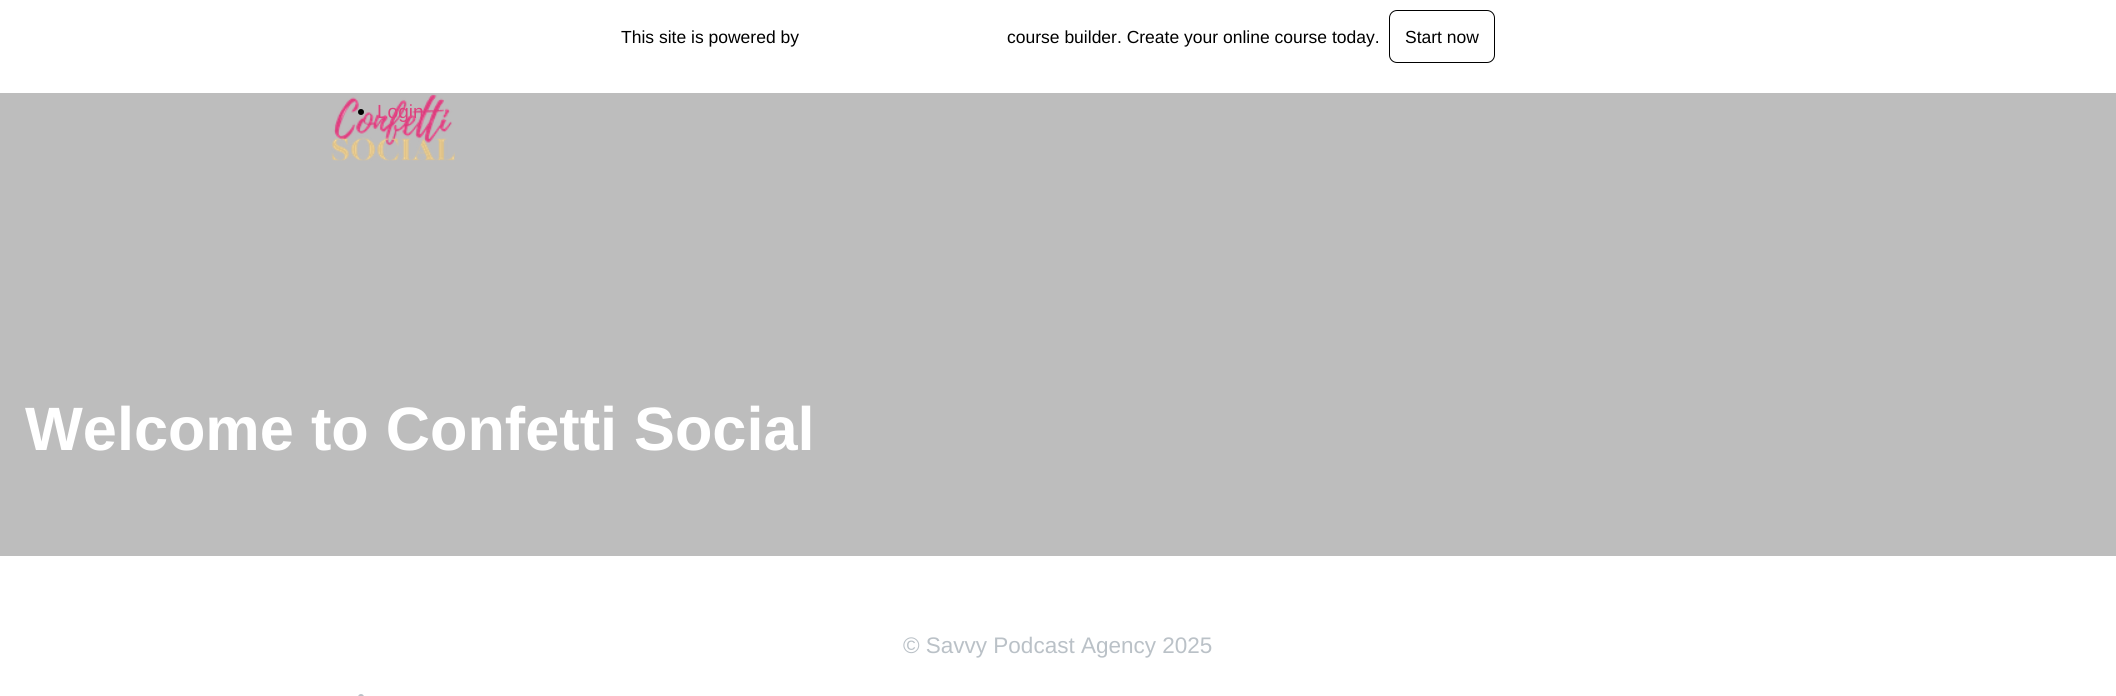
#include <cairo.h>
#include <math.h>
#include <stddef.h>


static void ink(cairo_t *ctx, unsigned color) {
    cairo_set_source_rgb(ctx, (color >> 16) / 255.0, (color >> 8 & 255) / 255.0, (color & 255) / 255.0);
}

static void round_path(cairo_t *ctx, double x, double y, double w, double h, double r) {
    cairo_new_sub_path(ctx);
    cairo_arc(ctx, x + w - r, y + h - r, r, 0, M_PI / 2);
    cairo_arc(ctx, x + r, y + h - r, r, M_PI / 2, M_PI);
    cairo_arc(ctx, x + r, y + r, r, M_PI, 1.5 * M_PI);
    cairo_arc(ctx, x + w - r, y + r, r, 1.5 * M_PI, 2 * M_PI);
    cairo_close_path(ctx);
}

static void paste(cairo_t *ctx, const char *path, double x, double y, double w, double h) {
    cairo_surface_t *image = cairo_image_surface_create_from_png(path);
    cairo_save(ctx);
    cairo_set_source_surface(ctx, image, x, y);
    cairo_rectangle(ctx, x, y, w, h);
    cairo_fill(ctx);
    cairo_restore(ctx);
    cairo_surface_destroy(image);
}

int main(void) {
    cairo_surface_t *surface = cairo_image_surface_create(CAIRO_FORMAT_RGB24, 2116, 696);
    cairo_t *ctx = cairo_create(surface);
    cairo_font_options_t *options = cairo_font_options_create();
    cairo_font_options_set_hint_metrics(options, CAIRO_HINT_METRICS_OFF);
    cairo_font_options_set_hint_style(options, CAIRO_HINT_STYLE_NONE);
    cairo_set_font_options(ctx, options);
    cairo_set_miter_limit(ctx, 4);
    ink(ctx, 0xFFFFFF);
    cairo_paint(ctx);
    cairo_select_font_face(ctx, "Liberation Sans", CAIRO_FONT_SLANT_NORMAL, CAIRO_FONT_WEIGHT_NORMAL);
    cairo_set_font_size(ctx, 17.5);
    ink(ctx, 0x000000);
    cairo_move_to(ctx, 621, 43);
    cairo_show_text(ctx, "This site is powered by");
    cairo_move_to(ctx, 1007, 43);
    cairo_show_text(ctx, "course builder. Create your online course today.");
    round_path(ctx, 1389.5, 10.5, 105, 52, 7.5);
    cairo_set_line_width(ctx, 1);
    cairo_stroke(ctx);
    cairo_move_to(ctx, 1405, 43);
    cairo_show_text(ctx, "Start now");
    ink(ctx, 0xBDBDBD);
    cairo_rectangle(ctx, 0, 93, 2116, 463);
    cairo_fill(ctx);
    ink(ctx, 0x000000);
    cairo_arc(ctx, 361, 112, 3, 0, 2 * M_PI);
    cairo_fill(ctx);
    cairo_set_font_size(ctx, 19);
    ink(ctx, 0xDE417D);
    cairo_move_to(ctx, 377, 118);
    cairo_show_text(ctx, "Login");
    paste(ctx, "media/1.png", 331, 94, 124, 67);
    cairo_select_font_face(ctx, "Liberation Sans", CAIRO_FONT_SLANT_NORMAL, CAIRO_FONT_WEIGHT_BOLD);
    cairo_set_font_size(ctx, 61.25);
    ink(ctx, 0xFFFFFF);
    cairo_move_to(ctx, 25, 450);
    cairo_show_text(ctx, "Welcome to Confetti Social");
    cairo_select_font_face(ctx, "Liberation Sans", CAIRO_FONT_SLANT_NORMAL, CAIRO_FONT_WEIGHT_NORMAL);
    cairo_set_font_size(ctx, 22.5);
    ink(ctx, 0xBAC1C7);
    cairo_move_to(ctx, 903, 653);
    cairo_show_text(ctx, "© Savvy Podcast Agency 2025");
    round_path(ctx, 358, 694, 6, 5, 3);
    cairo_fill(ctx);
    cairo_surface_write_to_png(surface, "image.png");
    cairo_font_options_destroy(options);
    cairo_destroy(ctx);
    cairo_surface_destroy(surface);
    return 0;
}
